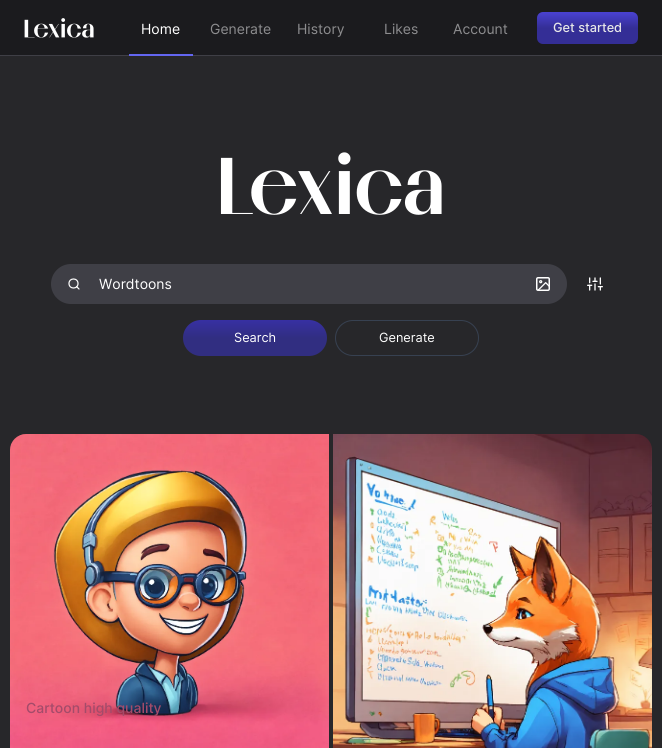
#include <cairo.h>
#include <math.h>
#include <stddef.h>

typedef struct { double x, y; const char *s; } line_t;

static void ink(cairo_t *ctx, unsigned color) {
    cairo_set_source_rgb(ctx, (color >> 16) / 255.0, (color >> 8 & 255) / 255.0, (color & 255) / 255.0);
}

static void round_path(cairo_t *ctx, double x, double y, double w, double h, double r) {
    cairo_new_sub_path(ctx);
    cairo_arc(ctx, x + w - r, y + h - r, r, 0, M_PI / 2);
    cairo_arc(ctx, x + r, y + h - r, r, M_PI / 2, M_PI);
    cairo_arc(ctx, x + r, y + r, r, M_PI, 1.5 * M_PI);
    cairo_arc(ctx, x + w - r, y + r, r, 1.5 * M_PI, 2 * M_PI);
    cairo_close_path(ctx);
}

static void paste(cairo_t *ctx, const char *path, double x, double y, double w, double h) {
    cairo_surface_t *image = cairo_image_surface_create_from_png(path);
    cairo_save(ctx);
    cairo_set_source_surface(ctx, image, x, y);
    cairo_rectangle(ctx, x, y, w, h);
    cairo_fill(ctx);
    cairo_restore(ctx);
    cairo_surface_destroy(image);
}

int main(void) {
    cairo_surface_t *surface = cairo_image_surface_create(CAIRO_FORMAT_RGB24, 662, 748);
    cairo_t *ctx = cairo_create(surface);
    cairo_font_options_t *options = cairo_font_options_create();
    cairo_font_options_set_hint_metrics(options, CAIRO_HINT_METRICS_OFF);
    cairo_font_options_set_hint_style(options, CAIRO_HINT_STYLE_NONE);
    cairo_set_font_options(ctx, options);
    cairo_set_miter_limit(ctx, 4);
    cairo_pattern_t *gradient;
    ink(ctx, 0x27272A);
    cairo_paint(ctx);
    ink(ctx, 0x1B1B1E);
    cairo_rectangle(ctx, 0, 0, 662, 55);
    cairo_fill(ctx);
    ink(ctx, 0x3F3F46);
    cairo_rectangle(ctx, 0, 55, 662, 1);
    cairo_fill(ctx);
    paste(ctx, "media/1.png", 24, 18, 70, 20);
    cairo_select_font_face(ctx, "Inter", CAIRO_FONT_SLANT_NORMAL, CAIRO_FONT_WEIGHT_NORMAL);
    cairo_set_font_size(ctx, 14);
    ink(ctx, 0xFFFFFF);
    cairo_move_to(ctx, 141, 34);
    cairo_show_text(ctx, "Home");
    ink(ctx, 0x6366F1);
    cairo_rectangle(ctx, 129, 54, 64, 2);
    cairo_fill(ctx);
    ink(ctx, 0x8D8D8F);
    {
        static const line_t items[] = {
            {210, 34, "Generate"},
            {297, 34, "History"},
            {384, 34, "Likes"},
            {453, 34, "Account"},
        };
        for (size_t i = 0; i < sizeof items / sizeof *items; i++) {
            cairo_move_to(ctx, items[i].x, items[i].y);
            cairo_show_text(ctx, items[i].s);
        }
    }
    gradient = cairo_pattern_create_linear(588, 44, 588, 12);
    cairo_pattern_add_color_stop_rgba(gradient, 0, 0.204, 0.18, 0.588, 1);
    cairo_pattern_add_color_stop_rgba(gradient, 0.5, 0.204, 0.18, 0.588, 1);
    cairo_pattern_add_color_stop_rgba(gradient, 1, 0.29, 0.259, 0.82, 1);
    cairo_set_source(ctx, gradient);
    cairo_pattern_destroy(gradient);
    round_path(ctx, 537, 12, 101, 32, 6);
    cairo_fill(ctx);
    cairo_select_font_face(ctx, "Inter Medium", CAIRO_FONT_SLANT_NORMAL, CAIRO_FONT_WEIGHT_NORMAL);
    cairo_set_font_size(ctx, 12.75);
    ink(ctx, 0xE8E8E9);
    cairo_move_to(ctx, 553, 32);
    cairo_show_text(ctx, "Get started");
    paste(ctx, "media/2.png", 220, 152, 222, 63);
    ink(ctx, 0x3F3F46);
    round_path(ctx, 51, 264, 516, 40, 20);
    cairo_fill(ctx);
    cairo_arc(ctx, 73.5, 283.5, 4.5, 0, 2 * M_PI);
    ink(ctx, 0xFFFFFF);
    cairo_set_line_width(ctx, 1.2);
    cairo_stroke(ctx);
    cairo_new_path(ctx);
    cairo_move_to(ctx, 79, 289);
    cairo_line_to(ctx, 76.5, 286.5);
    cairo_set_line_cap(ctx, CAIRO_LINE_CAP_ROUND);
    cairo_set_line_join(ctx, CAIRO_LINE_JOIN_ROUND);
    cairo_stroke(ctx);
    cairo_select_font_face(ctx, "Inter", CAIRO_FONT_SLANT_NORMAL, CAIRO_FONT_WEIGHT_NORMAL);
    cairo_set_font_size(ctx, 14);
    cairo_move_to(ctx, 99, 289);
    cairo_show_text(ctx, "Wordtoons");
    paste(ctx, "media/3.png", 536, 277, 14, 14);
    paste(ctx, "media/4.png", 587, 277, 16, 14);
    gradient = cairo_pattern_create_linear(255, 356, 255, 320);
    cairo_pattern_add_color_stop_rgba(gradient, 0, 0.192, 0.18, 0.506, 1);
    cairo_pattern_add_color_stop_rgba(gradient, 0.5, 0.192, 0.18, 0.506, 1);
    cairo_pattern_add_color_stop_rgba(gradient, 1, 0.216, 0.188, 0.639, 1);
    cairo_set_source(ctx, gradient);
    cairo_pattern_destroy(gradient);
    round_path(ctx, 183, 320, 144, 36, 18);
    cairo_fill(ctx);
    cairo_set_font_size(ctx, 12.75);
    ink(ctx, 0xFFFFFF);
    cairo_move_to(ctx, 234, 342);
    cairo_show_text(ctx, "Search");
    round_path(ctx, 335.5, 320.5, 143, 35, 17.5);
    ink(ctx, 0x374151);
    cairo_set_line_width(ctx, 1);
    cairo_set_line_cap(ctx, CAIRO_LINE_CAP_BUTT);
    cairo_set_line_join(ctx, CAIRO_LINE_JOIN_MITER);
    cairo_stroke(ctx);
    ink(ctx, 0xFFFFFF);
    cairo_move_to(ctx, 379, 342);
    cairo_show_text(ctx, "Generate");
    paste(ctx, "media/5.png", 10, 434, 319, 314);
    cairo_select_font_face(ctx, "Inter Medium", CAIRO_FONT_SLANT_NORMAL, CAIRO_FONT_WEIGHT_NORMAL);
    cairo_set_font_size(ctx, 14);
    ink(ctx, 0xA44B6A);
    cairo_move_to(ctx, 26, 713);
    cairo_show_text(ctx, "Cartoon high quality");
    paste(ctx, "media/6.png", 333, 434, 319, 314);
    cairo_surface_write_to_png(surface, "image.png");
    cairo_font_options_destroy(options);
    cairo_destroy(ctx);
    cairo_surface_destroy(surface);
    return 0;
}
